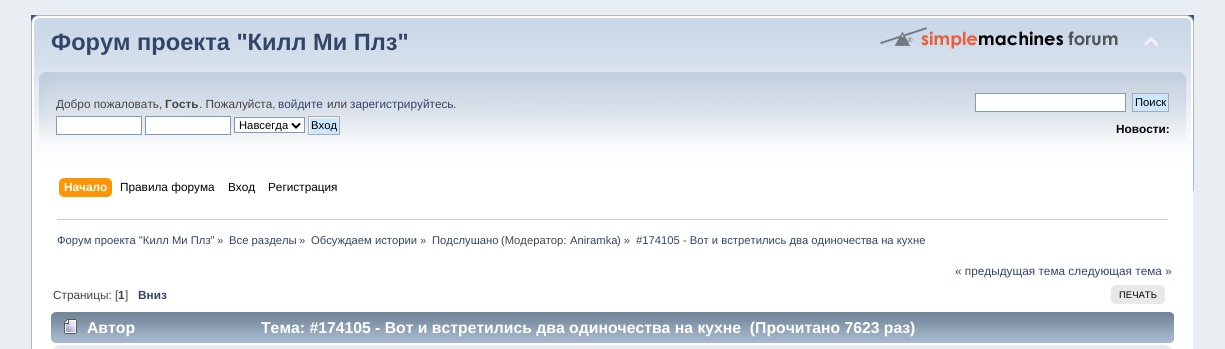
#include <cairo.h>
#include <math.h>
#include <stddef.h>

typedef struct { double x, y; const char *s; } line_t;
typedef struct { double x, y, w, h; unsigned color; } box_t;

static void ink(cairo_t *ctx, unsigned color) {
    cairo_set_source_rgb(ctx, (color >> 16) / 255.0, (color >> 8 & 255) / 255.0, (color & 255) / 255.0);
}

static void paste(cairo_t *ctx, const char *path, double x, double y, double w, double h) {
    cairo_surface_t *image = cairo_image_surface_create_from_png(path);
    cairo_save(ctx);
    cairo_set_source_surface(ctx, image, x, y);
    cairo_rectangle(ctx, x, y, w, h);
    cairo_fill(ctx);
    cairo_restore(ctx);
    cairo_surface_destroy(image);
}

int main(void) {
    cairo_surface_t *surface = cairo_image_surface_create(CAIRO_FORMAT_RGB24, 1225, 349);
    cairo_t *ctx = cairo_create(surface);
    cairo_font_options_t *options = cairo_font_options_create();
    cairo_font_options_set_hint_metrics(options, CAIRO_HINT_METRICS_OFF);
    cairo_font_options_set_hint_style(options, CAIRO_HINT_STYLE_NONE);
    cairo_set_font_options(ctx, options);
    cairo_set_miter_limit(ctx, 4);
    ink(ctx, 0xE9EEF2);
    cairo_paint(ctx);
    paste(ctx, "media/1.png", 31, 15, 1150, 176);
    paste(ctx, "media/2.png", 1181, 15, 13, 176);
    cairo_select_font_face(ctx, "Liberation Sans", CAIRO_FONT_SLANT_NORMAL, CAIRO_FONT_WEIGHT_BOLD);
    cairo_set_font_size(ctx, 23.6);
    ink(ctx, 0x334466);
    cairo_move_to(ctx, 51, 50);
    cairo_show_text(ctx, "Форум проекта \"Килл Ми Плз\"");
    paste(ctx, "media/3.png", 880, 27, 238, 22);
    paste(ctx, "media/4.png", 1144, 36, 15, 12);
    cairo_save(ctx);
    cairo_rectangle(ctx, 56, 93, 557, 50);
    cairo_clip(ctx);
    cairo_select_font_face(ctx, "Liberation Sans", CAIRO_FONT_SLANT_NORMAL, CAIRO_FONT_WEIGHT_NORMAL);
    cairo_set_font_size(ctx, 11.8);
    ink(ctx, 0x444444);
    cairo_move_to(ctx, 56, 108);
    cairo_show_text(ctx, "Добро пожаловать,");
    cairo_restore(ctx);
    cairo_set_font_size(ctx, 11.8);
    ink(ctx, 0x444444);
    cairo_move_to(ctx, 165, 108);
    cairo_show_text(ctx, "Гость");
    cairo_select_font_face(ctx, "Liberation Sans", CAIRO_FONT_SLANT_NORMAL, CAIRO_FONT_WEIGHT_NORMAL);
    cairo_move_to(ctx, 199, 108);
    cairo_show_text(ctx, ". Пожалуйста,");
    ink(ctx, 0x334466);
    cairo_move_to(ctx, 278, 108);
    cairo_show_text(ctx, "войдите");
    ink(ctx, 0x444444);
    cairo_move_to(ctx, 327, 108);
    cairo_show_text(ctx, "или");
    ink(ctx, 0x334466);
    cairo_move_to(ctx, 350, 108);
    cairo_show_text(ctx, "зарегистрируйтесь");
    ink(ctx, 0x444444);
    cairo_move_to(ctx, 453, 108);
    cairo_show_text(ctx, ".");
    ink(ctx, 0xFFFFFF);
    cairo_rectangle(ctx, 56.5, 116.5, 85, 18);
    cairo_fill_preserve(ctx);
    ink(ctx, 0x7F9DB9);
    cairo_set_line_width(ctx, 1);
    cairo_stroke(ctx);
    ink(ctx, 0xFFFFFF);
    cairo_rectangle(ctx, 145.5, 116.5, 85, 18);
    cairo_fill_preserve(ctx);
    ink(ctx, 0x7F9DB9);
    cairo_stroke(ctx);
    ink(ctx, 0xFFFFFF);
    cairo_rectangle(ctx, 234.5, 117.5, 70, 15);
    cairo_fill_preserve(ctx);
    ink(ctx, 0x7F9DB9);
    cairo_stroke(ctx);
    cairo_new_path(ctx);
    cairo_move_to(ctx, 292, 123.5);
    cairo_line_to(ctx, 296, 127.5);
    cairo_line_to(ctx, 300, 123.5);
    ink(ctx, 0x000000);
    cairo_set_line_width(ctx, 2);
    cairo_stroke(ctx);
    cairo_set_font_size(ctx, 11.25);
    cairo_move_to(ctx, 239, 129);
    cairo_show_text(ctx, "Навсегда");
    paste(ctx, "media/5.png", 309, 117, 30, 17);
    cairo_rectangle(ctx, 308.5, 116.5, 31, 18);
    ink(ctx, 0xAAAAAA);
    cairo_set_line_width(ctx, 1);
    cairo_stroke(ctx);
    ink(ctx, 0x000000);
    cairo_move_to(ctx, 311, 129);
    cairo_show_text(ctx, "Вход");
    ink(ctx, 0xFFFFFF);
    cairo_rectangle(ctx, 975.5, 93.5, 150, 18);
    cairo_fill_preserve(ctx);
    ink(ctx, 0x7F9DB9);
    cairo_stroke(ctx);
    ink(ctx, 0xCDE7FF);
    cairo_rectangle(ctx, 1132.5, 93.5, 36, 18);
    cairo_fill_preserve(ctx);
    ink(ctx, 0xAAAAAA);
    cairo_stroke(ctx);
    ink(ctx, 0x000000);
    cairo_move_to(ctx, 1135, 106);
    cairo_show_text(ctx, "Поиск");
    cairo_select_font_face(ctx, "Liberation Sans", CAIRO_FONT_SLANT_NORMAL, CAIRO_FONT_WEIGHT_BOLD);
    cairo_set_font_size(ctx, 11.8);
    cairo_move_to(ctx, 1116, 133);
    cairo_show_text(ctx, "Новости:");
    ink(ctx, 0xFFFFFF);
    cairo_rectangle(ctx, 32, 191, 1161, 158);
    cairo_fill(ctx);
    paste(ctx, "media/6.png", 64, 178, 48, 19);
    paste(ctx, "media/7.png", 59, 178, 5, 19);
    cairo_move_to(ctx, 64, 191);
    cairo_show_text(ctx, "Начало");
    cairo_select_font_face(ctx, "Liberation Sans", CAIRO_FONT_SLANT_NORMAL, CAIRO_FONT_WEIGHT_NORMAL);
    ink(ctx, 0x000000);
    {
        static const line_t items[] = {
            {120, 191, "Правила форума"},
            {228, 191, "Вход"},
            {268, 191, "Регистрация"},
        };
        for (size_t i = 0; i < sizeof items / sizeof *items; i++) {
            cairo_move_to(ctx, items[i].x, items[i].y);
            cairo_show_text(ctx, items[i].s);
        }
    }
    {
        static const box_t items[] = {
            {31, 191, 1, 158, 0xB7B7B7},
            {1193, 191, 1, 158, 0xEDEDED},
            {57, 219, 1111, 1, 0xCCCCCC},
        };
        for (size_t i = 0; i < sizeof items / sizeof *items; i++) {
            ink(ctx, items[i].color);
            cairo_rectangle(ctx, items[i].x, items[i].y, items[i].w, items[i].h);
            cairo_fill(ctx);
        }
    }
    cairo_set_font_size(ctx, 11.25);
    ink(ctx, 0x334466);
    cairo_move_to(ctx, 57, 244);
    cairo_show_text(ctx, "Форум проекта \"Килл Ми Плз\"");
    ink(ctx, 0x444444);
    cairo_move_to(ctx, 217, 244);
    cairo_show_text(ctx, "»");
    ink(ctx, 0x334466);
    cairo_move_to(ctx, 229, 244);
    cairo_show_text(ctx, "Все разделы");
    ink(ctx, 0x444444);
    cairo_move_to(ctx, 299, 244);
    cairo_show_text(ctx, "»");
    ink(ctx, 0x334466);
    cairo_move_to(ctx, 311, 244);
    cairo_show_text(ctx, "Обсуждаем истории");
    ink(ctx, 0x444444);
    cairo_move_to(ctx, 420, 244);
    cairo_show_text(ctx, "»");
    ink(ctx, 0x334466);
    cairo_move_to(ctx, 432, 244);
    cairo_show_text(ctx, "Подслушано");
    ink(ctx, 0x444444);
    cairo_move_to(ctx, 501, 244);
    cairo_show_text(ctx, "(Модератор:");
    ink(ctx, 0x334466);
    cairo_move_to(ctx, 570, 244);
    cairo_show_text(ctx, "Aniramka");
    ink(ctx, 0x444444);
    cairo_move_to(ctx, 617, 244);
    cairo_show_text(ctx, ") »");
    ink(ctx, 0x334466);
    cairo_move_to(ctx, 636, 244);
    cairo_show_text(ctx, "#174105 - Вот и встретились два одиночества на кухне");
    cairo_set_font_size(ctx, 11.8);
    cairo_move_to(ctx, 955, 275);
    cairo_show_text(ctx, "« предыдущая тема следующая тема »");
    ink(ctx, 0x444444);
    cairo_move_to(ctx, 53, 299);
    cairo_show_text(ctx, "Страницы: [");
    cairo_select_font_face(ctx, "Liberation Sans", CAIRO_FONT_SLANT_NORMAL, CAIRO_FONT_WEIGHT_BOLD);
    cairo_move_to(ctx, 118, 299);
    cairo_show_text(ctx, "1");
    cairo_select_font_face(ctx, "Liberation Sans", CAIRO_FONT_SLANT_NORMAL, CAIRO_FONT_WEIGHT_NORMAL);
    cairo_move_to(ctx, 125, 299);
    cairo_show_text(ctx, "]");
    cairo_select_font_face(ctx, "Liberation Sans", CAIRO_FONT_SLANT_NORMAL, CAIRO_FONT_WEIGHT_BOLD);
    ink(ctx, 0x334466);
    cairo_move_to(ctx, 138, 299);
    cairo_show_text(ctx, "Вниз");
    ink(ctx, 0xE8E8E8);
    cairo_rectangle(ctx, 1115, 285, 46, 19);
    cairo_fill(ctx);
    paste(ctx, "media/8.png", 1111, 285, 4, 19);
    paste(ctx, "media/9.png", 1161, 285, 4, 19);
    cairo_select_font_face(ctx, "Liberation Sans", CAIRO_FONT_SLANT_NORMAL, CAIRO_FONT_WEIGHT_NORMAL);
    cairo_set_font_size(ctx, 9.5);
    ink(ctx, 0x000000);
    cairo_move_to(ctx, 1119, 298);
    cairo_show_text(ctx, "ПЕЧАТЬ");
    paste(ctx, "media/10.png", 51, 312, 1119, 31);
    paste(ctx, "media/11.png", 1170, 312, 4, 31);
    paste(ctx, "media/12.png", 64, 319, 13, 15);
    cairo_select_font_face(ctx, "Liberation Sans", CAIRO_FONT_SLANT_NORMAL, CAIRO_FONT_WEIGHT_BOLD);
    cairo_set_font_size(ctx, 15.75);
    ink(ctx, 0xFFFFFF);
    cairo_move_to(ctx, 87, 333);
    cairo_show_text(ctx, "Автор");
    cairo_move_to(ctx, 261, 333);
    cairo_show_text(ctx, "Тема: #174105 - Вот и встретились два одиночества на кухне  (Прочитано 7623 раз)");
    ink(ctx, 0xE7EAEF);
    cairo_rectangle(ctx, 60, 345, 1114, 4);
    cairo_fill(ctx);
    paste(ctx, "media/13.png", 51, 345, 9, 4);
    paste(ctx, "media/14.png", 1166, 345, 8, 4);
    cairo_surface_write_to_png(surface, "image.png");
    cairo_font_options_destroy(options);
    cairo_destroy(ctx);
    cairo_surface_destroy(surface);
    return 0;
}
